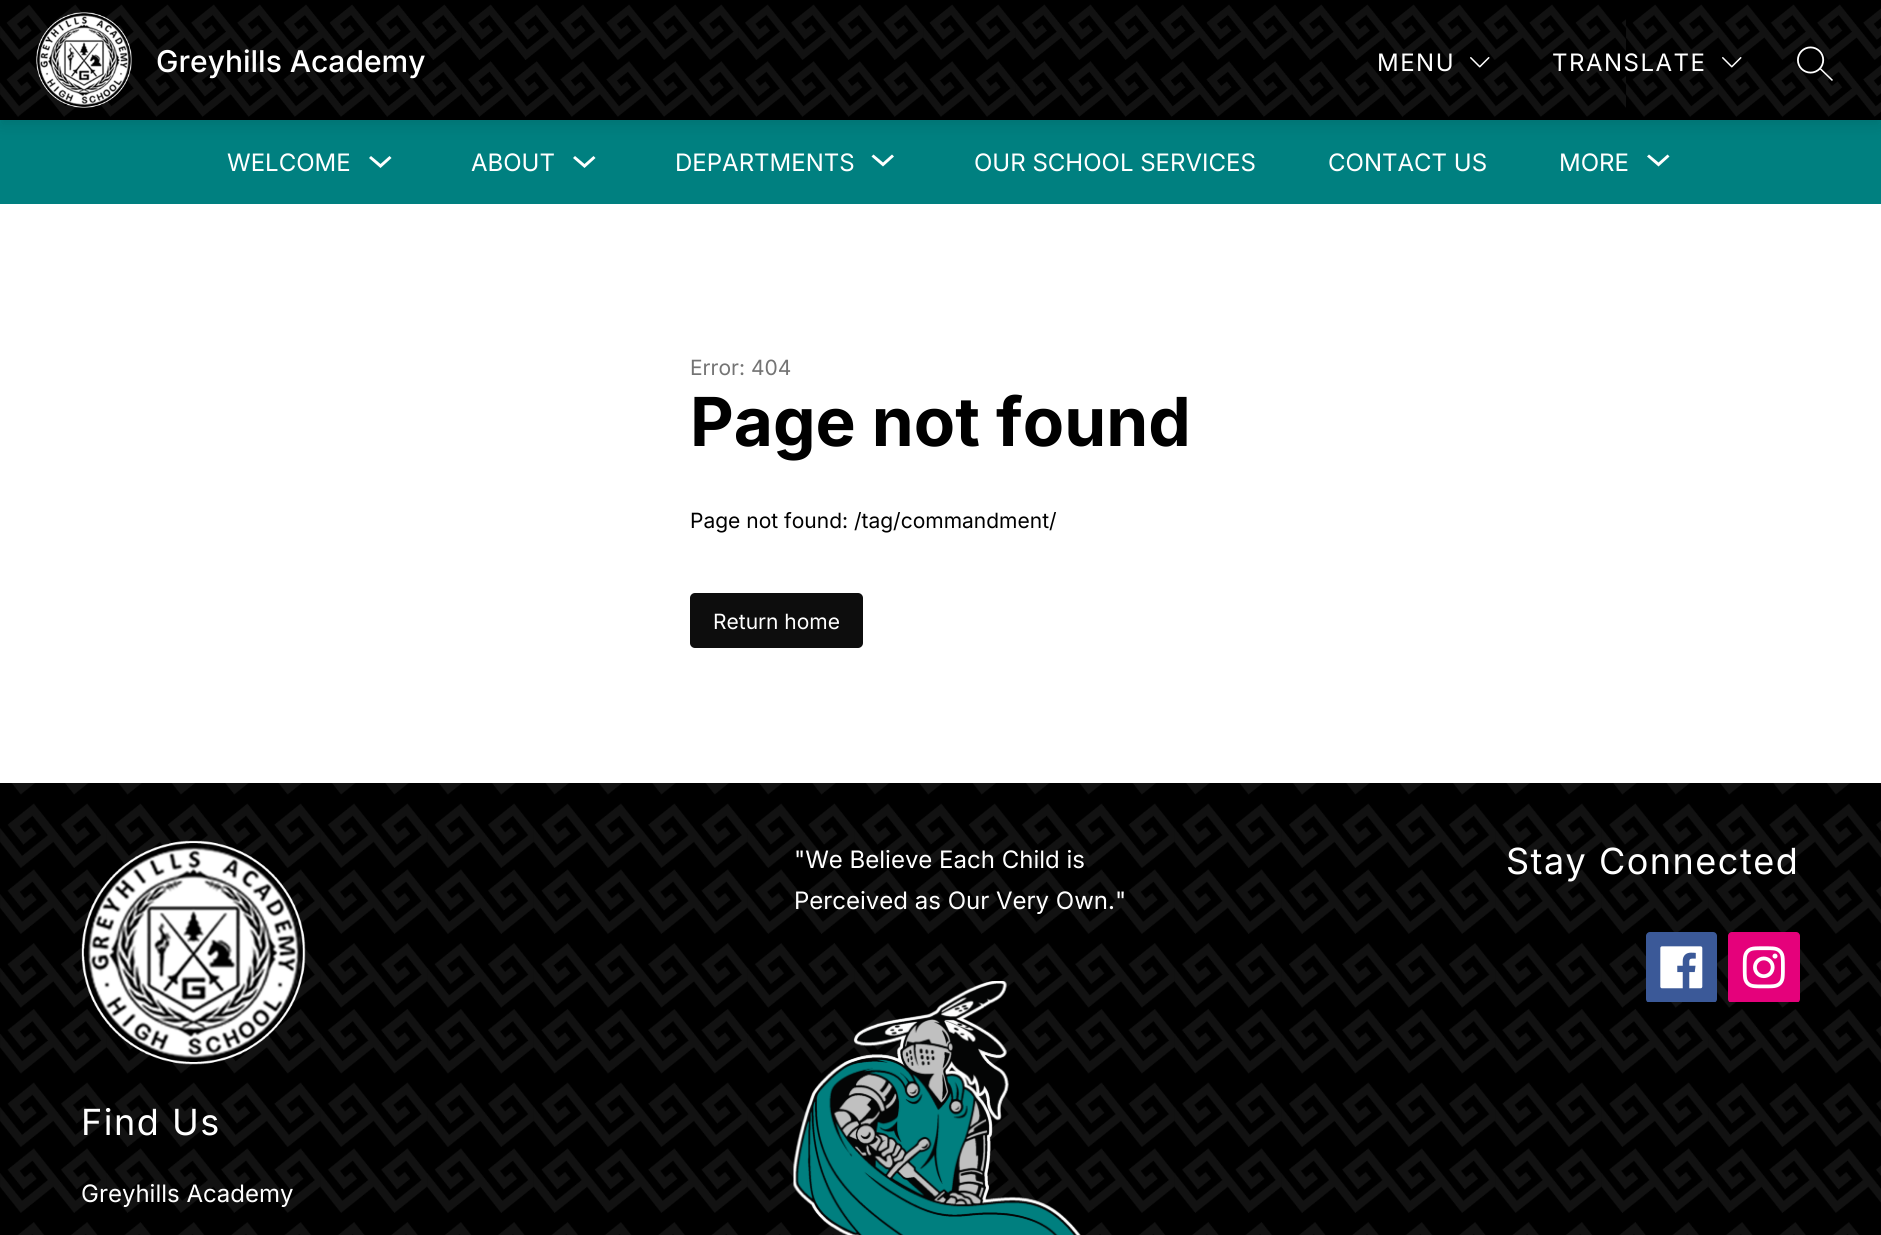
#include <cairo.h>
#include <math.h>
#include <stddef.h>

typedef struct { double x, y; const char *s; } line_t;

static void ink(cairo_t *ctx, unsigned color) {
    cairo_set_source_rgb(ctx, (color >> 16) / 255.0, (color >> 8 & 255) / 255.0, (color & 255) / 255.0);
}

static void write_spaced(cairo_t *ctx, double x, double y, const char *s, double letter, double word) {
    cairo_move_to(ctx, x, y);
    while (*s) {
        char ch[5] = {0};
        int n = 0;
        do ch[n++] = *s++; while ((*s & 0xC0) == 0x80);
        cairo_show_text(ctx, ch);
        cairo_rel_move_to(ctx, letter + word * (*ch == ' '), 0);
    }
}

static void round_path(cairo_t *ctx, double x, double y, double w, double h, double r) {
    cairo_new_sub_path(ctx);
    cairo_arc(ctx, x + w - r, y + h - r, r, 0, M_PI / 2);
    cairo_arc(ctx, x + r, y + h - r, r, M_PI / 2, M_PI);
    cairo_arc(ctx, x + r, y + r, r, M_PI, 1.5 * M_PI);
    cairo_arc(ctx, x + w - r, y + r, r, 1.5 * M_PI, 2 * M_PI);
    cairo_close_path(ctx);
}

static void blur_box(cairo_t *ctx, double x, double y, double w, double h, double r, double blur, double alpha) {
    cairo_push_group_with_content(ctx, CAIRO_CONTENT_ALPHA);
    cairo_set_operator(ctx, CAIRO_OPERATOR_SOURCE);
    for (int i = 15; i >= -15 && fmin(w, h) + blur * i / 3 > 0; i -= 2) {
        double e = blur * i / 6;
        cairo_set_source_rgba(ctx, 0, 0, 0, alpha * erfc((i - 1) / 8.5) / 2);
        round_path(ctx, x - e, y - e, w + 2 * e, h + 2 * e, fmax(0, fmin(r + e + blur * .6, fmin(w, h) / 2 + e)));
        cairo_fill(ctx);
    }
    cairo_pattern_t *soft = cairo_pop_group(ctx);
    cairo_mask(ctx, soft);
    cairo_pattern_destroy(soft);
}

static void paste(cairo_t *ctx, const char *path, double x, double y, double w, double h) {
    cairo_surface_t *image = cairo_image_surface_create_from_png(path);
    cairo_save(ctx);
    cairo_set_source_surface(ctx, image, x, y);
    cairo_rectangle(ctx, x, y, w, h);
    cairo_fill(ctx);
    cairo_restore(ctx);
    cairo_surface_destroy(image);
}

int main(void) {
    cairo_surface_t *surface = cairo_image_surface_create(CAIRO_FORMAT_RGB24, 1881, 1235);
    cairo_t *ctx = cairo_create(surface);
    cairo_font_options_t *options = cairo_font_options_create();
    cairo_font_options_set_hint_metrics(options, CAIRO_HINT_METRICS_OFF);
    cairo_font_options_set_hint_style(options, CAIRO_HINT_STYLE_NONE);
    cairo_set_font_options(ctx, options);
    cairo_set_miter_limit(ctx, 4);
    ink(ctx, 0xFFFFFF);
    cairo_paint(ctx);
    ink(ctx, 0x008080);
    cairo_rectangle(ctx, 0, 120, 1881, 84);
    cairo_fill(ctx);
    ink(ctx, 0x000000);
    blur_box(ctx, 0, 6, 1881, 120, 0, 7.5, 0.1);
    paste(ctx, "media/1.png", 0, 0, 1881, 120);
    paste(ctx, "media/2.png", 36, 12, 96, 96);
    cairo_select_font_face(ctx, "Inter Medium", CAIRO_FONT_SLANT_NORMAL, CAIRO_FONT_WEIGHT_NORMAL);
    cairo_set_font_size(ctx, 30);
    ink(ctx, 0xFFFFFF);
    cairo_move_to(ctx, 156, 72);
    cairo_show_text(ctx, "Greyhills Academy");
    cairo_select_font_face(ctx, "Inter", CAIRO_FONT_SLANT_NORMAL, CAIRO_FONT_WEIGHT_NORMAL);
    cairo_set_font_size(ctx, 24);
    write_spaced(ctx, 1377, 71, "MENU", 1.5, 0);
    paste(ctx, "media/3.png", 1470, 57, 20, 11);
    write_spaced(ctx, 1552, 71, "TRANSLATE", 1.5, 0);
    paste(ctx, "media/4.png", 1722, 57, 20, 11);
    paste(ctx, "media/5.png", 1797, 46, 36, 35);
    cairo_move_to(ctx, 227, 171);
    cairo_show_text(ctx, "WELCOME");
    cairo_set_fill_rule(ctx, CAIRO_FILL_RULE_EVEN_ODD);
    cairo_new_path(ctx);
    cairo_move_to(ctx, 389.5, 156);
    cairo_line_to(ctx, 380.5, 164);
    cairo_line_to(ctx, 371, 156);
    cairo_line_to(ctx, 369, 158);
    cairo_line_to(ctx, 380.5, 168);
    cairo_line_to(ctx, 391.5, 158);
    cairo_close_path(ctx);
    cairo_fill(ctx);
    cairo_move_to(ctx, 471, 171);
    cairo_show_text(ctx, "ABOUT");
    cairo_new_path(ctx);
    cairo_move_to(ctx, 593.5, 156);
    cairo_line_to(ctx, 584.5, 164);
    cairo_line_to(ctx, 575, 156);
    cairo_line_to(ctx, 573, 158);
    cairo_line_to(ctx, 584.5, 168);
    cairo_line_to(ctx, 595.5, 158);
    cairo_close_path(ctx);
    cairo_fill(ctx);
    cairo_move_to(ctx, 675, 171);
    cairo_show_text(ctx, "DEPARTMENTS");
    cairo_new_path(ctx);
    cairo_move_to(ctx, 892, 154.5);
    cairo_line_to(ctx, 883, 162.5);
    cairo_line_to(ctx, 873.5, 154.5);
    cairo_line_to(ctx, 871.5, 156.5);
    cairo_line_to(ctx, 883, 166.5);
    cairo_line_to(ctx, 894, 156.5);
    cairo_close_path(ctx);
    cairo_fill(ctx);
    {
        static const line_t items[] = {
            {974, 171, "OUR SCHOOL SERVICES"},
            {1328, 171, "CONTACT US"},
            {1559, 171, "MORE"},
        };
        for (size_t i = 0; i < sizeof items / sizeof *items; i++) {
            cairo_move_to(ctx, items[i].x, items[i].y);
            cairo_show_text(ctx, items[i].s);
        }
    }
    cairo_new_path(ctx);
    cairo_move_to(ctx, 1667.5, 154.5);
    cairo_line_to(ctx, 1658.5, 162.5);
    cairo_line_to(ctx, 1649, 154.5);
    cairo_line_to(ctx, 1647, 156.5);
    cairo_line_to(ctx, 1658.5, 166.5);
    cairo_line_to(ctx, 1669.5, 156.5);
    cairo_close_path(ctx);
    cairo_fill(ctx);
    cairo_set_font_size(ctx, 21);
    ink(ctx, 0x747474);
    cairo_move_to(ctx, 690, 375);
    cairo_show_text(ctx, "Error: 404");
    cairo_select_font_face(ctx, "Inter", CAIRO_FONT_SLANT_NORMAL, CAIRO_FONT_WEIGHT_BOLD);
    cairo_set_font_size(ctx, 67.5);
    ink(ctx, 0x000000);
    cairo_move_to(ctx, 690, 446);
    cairo_show_text(ctx, "Page not found");
    cairo_select_font_face(ctx, "Inter", CAIRO_FONT_SLANT_NORMAL, CAIRO_FONT_WEIGHT_NORMAL);
    cairo_set_font_size(ctx, 21);
    cairo_move_to(ctx, 690, 528);
    cairo_show_text(ctx, "Page not found: /tag/commandment/");
    ink(ctx, 0x0D0D0D);
    round_path(ctx, 690, 593, 173, 55, 5);
    cairo_fill(ctx);
    ink(ctx, 0xFFFFFF);
    cairo_move_to(ctx, 713, 629);
    cairo_show_text(ctx, "Return home");
    paste(ctx, "media/6.png", 0, 783, 1881, 452);
    cairo_set_font_size(ctx, 24);
    cairo_move_to(ctx, 794, 868);
    cairo_show_text(ctx, "\"We Believe Each Child is");
    cairo_move_to(ctx, 794, 909);
    cairo_show_text(ctx, "Perceived as Our Very Own.\"");
    paste(ctx, "media/7.png", 793, 981, 288, 254);
    cairo_set_font_size(ctx, 36);
    write_spaced(ctx, 1506, 874, "Stay Connected", 1.5, 0);
    paste(ctx, "media/8.png", 1646, 932, 71, 70);
    paste(ctx, "media/9.png", 1728, 932, 72, 70);
    paste(ctx, "media/10.png", 81, 840, 225, 225);
    write_spaced(ctx, 81, 1135, "Find Us", 1.5, 0);
    cairo_set_font_size(ctx, 24);
    cairo_move_to(ctx, 81, 1202);
    cairo_show_text(ctx, "Greyhills Academy");
    cairo_surface_write_to_png(surface, "image.png");
    cairo_font_options_destroy(options);
    cairo_destroy(ctx);
    cairo_surface_destroy(surface);
    return 0;
}
